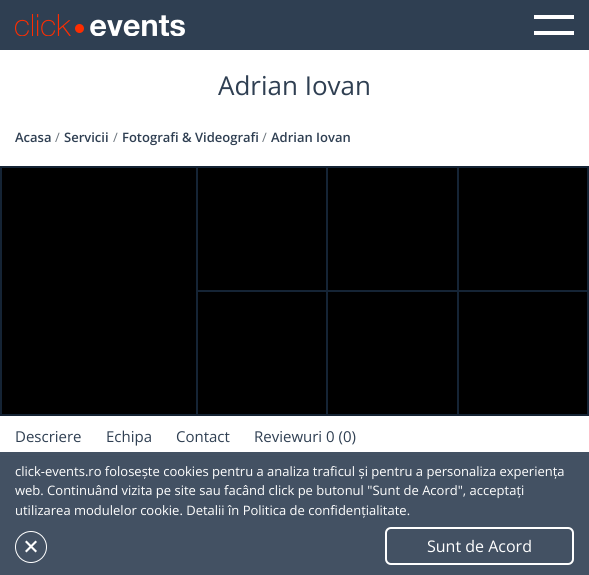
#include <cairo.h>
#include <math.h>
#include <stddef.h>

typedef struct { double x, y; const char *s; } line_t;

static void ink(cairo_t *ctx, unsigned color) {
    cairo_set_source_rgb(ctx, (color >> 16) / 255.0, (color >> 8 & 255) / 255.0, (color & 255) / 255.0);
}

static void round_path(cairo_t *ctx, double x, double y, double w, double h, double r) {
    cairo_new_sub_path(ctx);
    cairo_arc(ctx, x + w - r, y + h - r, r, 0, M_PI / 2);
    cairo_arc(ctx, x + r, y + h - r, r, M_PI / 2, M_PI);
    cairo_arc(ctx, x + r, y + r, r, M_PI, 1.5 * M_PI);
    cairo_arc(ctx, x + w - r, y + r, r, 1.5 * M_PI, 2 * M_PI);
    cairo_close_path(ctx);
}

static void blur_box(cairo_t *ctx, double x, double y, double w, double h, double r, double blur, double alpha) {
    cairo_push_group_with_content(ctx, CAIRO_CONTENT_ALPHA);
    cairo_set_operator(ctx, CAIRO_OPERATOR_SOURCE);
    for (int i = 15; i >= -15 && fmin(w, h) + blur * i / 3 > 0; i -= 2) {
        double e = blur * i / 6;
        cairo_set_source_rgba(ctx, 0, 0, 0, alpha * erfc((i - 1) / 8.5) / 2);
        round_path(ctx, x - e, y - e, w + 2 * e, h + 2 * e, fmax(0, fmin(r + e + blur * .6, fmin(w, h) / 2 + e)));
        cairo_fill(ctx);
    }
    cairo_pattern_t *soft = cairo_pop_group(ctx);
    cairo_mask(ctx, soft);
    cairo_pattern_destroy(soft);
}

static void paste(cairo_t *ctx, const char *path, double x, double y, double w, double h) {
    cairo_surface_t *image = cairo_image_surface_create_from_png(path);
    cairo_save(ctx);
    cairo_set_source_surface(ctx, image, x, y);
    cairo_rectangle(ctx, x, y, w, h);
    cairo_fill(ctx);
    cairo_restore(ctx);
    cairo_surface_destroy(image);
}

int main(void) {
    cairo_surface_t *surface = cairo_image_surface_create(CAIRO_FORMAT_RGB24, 589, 575);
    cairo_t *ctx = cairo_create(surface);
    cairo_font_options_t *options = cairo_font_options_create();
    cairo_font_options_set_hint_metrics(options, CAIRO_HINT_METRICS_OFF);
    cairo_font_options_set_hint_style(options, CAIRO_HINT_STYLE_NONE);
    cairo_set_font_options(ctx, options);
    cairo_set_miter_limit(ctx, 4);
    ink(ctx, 0xFFFFFF);
    cairo_paint(ctx);
    ink(ctx, 0x2F3F52);
    cairo_rectangle(ctx, 0, 0, 589, 50);
    cairo_fill(ctx);
    paste(ctx, "media/1.png", 15, 14, 170, 22);
    ink(ctx, 0xFFFFFF);
    cairo_rectangle(ctx, 534, 15, 40, 4);
    cairo_fill(ctx);
    cairo_rectangle(ctx, 534, 31, 40, 4);
    cairo_fill(ctx);
    cairo_select_font_face(ctx, "Open Sans", CAIRO_FONT_SLANT_NORMAL, CAIRO_FONT_WEIGHT_NORMAL);
    cairo_set_font_size(ctx, 26);
    ink(ctx, 0x2F3F52);
    cairo_move_to(ctx, 218, 95);
    cairo_show_text(ctx, "Adrian Iovan");
    cairo_select_font_face(ctx, "Open Sans SemiBold", CAIRO_FONT_SLANT_NORMAL, CAIRO_FONT_WEIGHT_NORMAL);
    cairo_set_font_size(ctx, 13);
    cairo_move_to(ctx, 15, 142);
    cairo_show_text(ctx, "Acasa");
    cairo_select_font_face(ctx, "Open Sans", CAIRO_FONT_SLANT_NORMAL, CAIRO_FONT_WEIGHT_NORMAL);
    ink(ctx, 0x6C757D);
    cairo_move_to(ctx, 55, 142);
    cairo_show_text(ctx, "/");
    cairo_select_font_face(ctx, "Open Sans SemiBold", CAIRO_FONT_SLANT_NORMAL, CAIRO_FONT_WEIGHT_NORMAL);
    ink(ctx, 0x2F3F52);
    cairo_move_to(ctx, 64, 142);
    cairo_show_text(ctx, "Servicii");
    cairo_select_font_face(ctx, "Open Sans", CAIRO_FONT_SLANT_NORMAL, CAIRO_FONT_WEIGHT_NORMAL);
    ink(ctx, 0x6C757D);
    cairo_move_to(ctx, 113, 142);
    cairo_show_text(ctx, "/");
    cairo_select_font_face(ctx, "Open Sans SemiBold", CAIRO_FONT_SLANT_NORMAL, CAIRO_FONT_WEIGHT_NORMAL);
    ink(ctx, 0x2F3F52);
    cairo_move_to(ctx, 122, 142);
    cairo_show_text(ctx, "Fotografi & Videografi");
    cairo_select_font_face(ctx, "Open Sans", CAIRO_FONT_SLANT_NORMAL, CAIRO_FONT_WEIGHT_NORMAL);
    ink(ctx, 0x6C757D);
    cairo_move_to(ctx, 262, 142);
    cairo_show_text(ctx, "/");
    cairo_select_font_face(ctx, "Open Sans SemiBold", CAIRO_FONT_SLANT_NORMAL, CAIRO_FONT_WEIGHT_NORMAL);
    ink(ctx, 0x2F3F52);
    cairo_move_to(ctx, 271, 142);
    cairo_show_text(ctx, "Adrian Iovan");
    ink(ctx, 0x000000);
    cairo_rectangle(ctx, 2, 168, 585, 246);
    cairo_fill(ctx);
    cairo_rectangle(ctx, 0.5, 166.5, 588, 249);
    ink(ctx, 0x152435);
    cairo_set_line_width(ctx, 1);
    cairo_stroke(ctx);
    cairo_rectangle(ctx, 1.5, 167.5, 195, 247);
    cairo_stroke(ctx);
    cairo_rectangle(ctx, 197.5, 167.5, 129, 123);
    cairo_stroke(ctx);
    cairo_rectangle(ctx, 327.5, 167.5, 130, 123);
    cairo_stroke(ctx);
    cairo_rectangle(ctx, 458.5, 167.5, 129, 123);
    cairo_stroke(ctx);
    cairo_rectangle(ctx, 197.5, 291.5, 129, 123);
    cairo_stroke(ctx);
    cairo_rectangle(ctx, 327.5, 291.5, 130, 123);
    cairo_stroke(ctx);
    cairo_rectangle(ctx, 458.5, 291.5, 129, 123);
    cairo_stroke(ctx);
    cairo_save(ctx);
    cairo_set_fill_rule(ctx, CAIRO_FILL_RULE_EVEN_ODD);
    cairo_new_path(ctx);
    cairo_move_to(ctx, 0, 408);
    cairo_line_to(ctx, 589, 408);
    cairo_line_to(ctx, 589, 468);
    cairo_line_to(ctx, 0, 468);
    cairo_close_path(ctx);
    cairo_move_to(ctx, 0, 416);
    cairo_line_to(ctx, 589, 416);
    cairo_line_to(ctx, 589, 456);
    cairo_line_to(ctx, 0, 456);
    cairo_close_path(ctx);
    cairo_clip(ctx);
    ink(ctx, 0x000000);
    blur_box(ctx, 0, 418, 589, 40, 0, 3, 0.1);
    cairo_restore(ctx);
    cairo_select_font_face(ctx, "Open Sans", CAIRO_FONT_SLANT_NORMAL, CAIRO_FONT_WEIGHT_NORMAL);
    cairo_set_font_size(ctx, 15);
    ink(ctx, 0x2F3F52);
    {
        static const line_t items[] = {
            {15, 442, "Descriere"},
            {106, 442, "Echipa"},
            {176, 442, "Contact"},
            {254, 442, "Reviewuri 0 (0)"},
        };
        for (size_t i = 0; i < sizeof items / sizeof *items; i++) {
            cairo_move_to(ctx, items[i].x, items[i].y);
            cairo_show_text(ctx, items[i].s);
        }
    }
    cairo_set_source_rgba(ctx, 0.184, 0.247, 0.322, 0.9);
    cairo_rectangle(ctx, 0, 452, 589, 123);
    cairo_fill(ctx);
    cairo_set_font_size(ctx, 13);
    ink(ctx, 0xFFFFFF);
    {
        static const line_t items[] = {
            {15, 476, "click-events.ro folosește cookies pentru a analiza traficul și pentru a personaliza experiența"},
            {15, 495, "web. Continuând vizita pe site sau facând click pe butonul \"Sunt de Acord\", acceptați"},
            {15, 515, "utilizarea modulelor cookie. Detalii în Politica de confidențialitate."},
        };
        for (size_t i = 0; i < sizeof items / sizeof *items; i++) {
            cairo_move_to(ctx, items[i].x, items[i].y);
            cairo_show_text(ctx, items[i].s);
        }
    }
    cairo_new_path(ctx);
    cairo_arc(ctx, 31, 547, 15.5, 0, 2 * M_PI);
    cairo_stroke(ctx);
    cairo_new_path(ctx);
    cairo_move_to(ctx, 35.5, 540.5);
    cairo_line_to(ctx, 37, 542);
    cairo_line_to(ctx, 26.5, 552.5);
    cairo_line_to(ctx, 25, 551);
    cairo_close_path(ctx);
    cairo_fill(ctx);
    cairo_new_path(ctx);
    cairo_move_to(ctx, 25, 542);
    cairo_line_to(ctx, 26.5, 540.5);
    cairo_line_to(ctx, 37, 551);
    cairo_line_to(ctx, 35.5, 552.5);
    cairo_close_path(ctx);
    cairo_fill(ctx);
    round_path(ctx, 386, 528, 187, 36, 5);
    cairo_set_line_width(ctx, 2);
    cairo_stroke(ctx);
    cairo_set_font_size(ctx, 16);
    cairo_move_to(ctx, 427, 552);
    cairo_show_text(ctx, "Sunt de Acord");
    cairo_surface_write_to_png(surface, "image.png");
    cairo_font_options_destroy(options);
    cairo_destroy(ctx);
    cairo_surface_destroy(surface);
    return 0;
}
